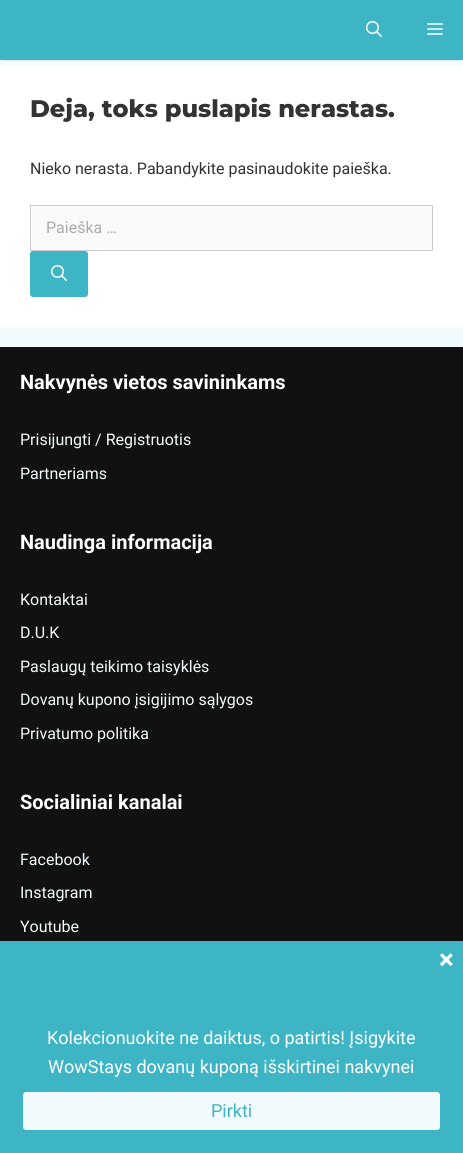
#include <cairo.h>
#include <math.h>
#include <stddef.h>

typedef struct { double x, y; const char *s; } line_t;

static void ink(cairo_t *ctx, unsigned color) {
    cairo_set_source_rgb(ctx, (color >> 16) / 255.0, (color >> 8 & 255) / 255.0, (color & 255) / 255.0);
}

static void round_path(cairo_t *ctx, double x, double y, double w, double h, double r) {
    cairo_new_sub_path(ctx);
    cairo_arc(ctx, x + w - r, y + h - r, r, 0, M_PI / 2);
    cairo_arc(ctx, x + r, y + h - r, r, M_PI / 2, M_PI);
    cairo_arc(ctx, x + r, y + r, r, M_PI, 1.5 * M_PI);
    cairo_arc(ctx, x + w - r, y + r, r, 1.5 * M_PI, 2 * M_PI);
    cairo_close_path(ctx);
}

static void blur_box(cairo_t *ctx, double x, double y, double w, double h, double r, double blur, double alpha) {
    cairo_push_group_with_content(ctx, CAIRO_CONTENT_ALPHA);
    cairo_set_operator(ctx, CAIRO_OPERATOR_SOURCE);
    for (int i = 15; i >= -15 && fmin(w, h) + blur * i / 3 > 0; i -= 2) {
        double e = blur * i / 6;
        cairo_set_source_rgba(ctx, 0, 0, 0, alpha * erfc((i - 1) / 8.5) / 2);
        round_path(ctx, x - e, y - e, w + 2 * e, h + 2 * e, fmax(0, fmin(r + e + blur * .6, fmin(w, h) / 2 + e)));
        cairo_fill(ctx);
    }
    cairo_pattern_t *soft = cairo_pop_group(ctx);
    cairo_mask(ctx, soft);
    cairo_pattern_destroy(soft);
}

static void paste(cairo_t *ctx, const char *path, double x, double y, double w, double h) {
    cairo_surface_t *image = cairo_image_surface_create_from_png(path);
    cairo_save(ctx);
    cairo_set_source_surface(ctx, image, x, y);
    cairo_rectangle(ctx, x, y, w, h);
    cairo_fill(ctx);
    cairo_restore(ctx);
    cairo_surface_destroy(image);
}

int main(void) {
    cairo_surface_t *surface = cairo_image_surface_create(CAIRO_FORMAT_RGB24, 463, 1153);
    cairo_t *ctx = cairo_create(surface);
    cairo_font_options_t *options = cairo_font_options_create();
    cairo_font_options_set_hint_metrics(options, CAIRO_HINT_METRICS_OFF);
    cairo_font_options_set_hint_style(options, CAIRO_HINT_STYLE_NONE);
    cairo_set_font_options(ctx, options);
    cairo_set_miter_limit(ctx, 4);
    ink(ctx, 0xF1FAFC);
    cairo_paint(ctx);
    ink(ctx, 0x000000);
    blur_box(ctx, 2, 4, 459, 56, 0, 1, 0.2);
    ink(ctx, 0x3DB5C4);
    cairo_rectangle(ctx, 0, 0, 463, 60);
    cairo_fill(ctx);
    paste(ctx, "media/1.png", 366, 21, 16, 16);
    paste(ctx, "media/2.png", 427, 23, 16, 12);
    ink(ctx, 0xFFFFFF);
    cairo_rectangle(ctx, 0, 65, 463, 262);
    cairo_fill(ctx);
    cairo_select_font_face(ctx, "Montserrat ExtraBold", CAIRO_FONT_SLANT_NORMAL, CAIRO_FONT_WEIGHT_NORMAL);
    cairo_set_font_size(ctx, 24);
    ink(ctx, 0x333333);
    cairo_move_to(ctx, 30, 117);
    cairo_show_text(ctx, "Deja, toks puslapis nerastas.");
    cairo_select_font_face(ctx, "Roboto", CAIRO_FONT_SLANT_NORMAL, CAIRO_FONT_WEIGHT_NORMAL);
    cairo_set_font_size(ctx, 16);
    cairo_move_to(ctx, 30, 174);
    cairo_show_text(ctx, "Nieko nerasta. Pabandykite pasinaudokite paieška.");
    ink(ctx, 0xFAFAFA);
    cairo_rectangle(ctx, 30.5, 205.5, 402, 45);
    cairo_fill_preserve(ctx);
    ink(ctx, 0xCCCCCC);
    cairo_set_line_width(ctx, 1);
    cairo_stroke(ctx);
    ink(ctx, 0xABABAB);
    cairo_move_to(ctx, 46, 233);
    cairo_show_text(ctx, "Paieška …");
    ink(ctx, 0x3DB5C4);
    round_path(ctx, 30, 251, 58, 46, 3);
    cairo_fill(ctx);
    paste(ctx, "media/1.png", 51, 265, 16, 16);
    ink(ctx, 0x111111);
    cairo_rectangle(ctx, 0, 347, 463, 594);
    cairo_fill(ctx);
    cairo_select_font_face(ctx, "Roboto", CAIRO_FONT_SLANT_NORMAL, CAIRO_FONT_WEIGHT_BOLD);
    cairo_set_font_size(ctx, 20);
    ink(ctx, 0xFFFFFF);
    cairo_move_to(ctx, 20, 389);
    cairo_show_text(ctx, "Nakvynės vietos savininkams");
    cairo_select_font_face(ctx, "Roboto", CAIRO_FONT_SLANT_NORMAL, CAIRO_FONT_WEIGHT_NORMAL);
    cairo_set_font_size(ctx, 16);
    ink(ctx, 0xF1FAFC);
    cairo_move_to(ctx, 20, 445);
    cairo_show_text(ctx, "Prisijungti / Registruotis");
    cairo_move_to(ctx, 20, 479);
    cairo_show_text(ctx, "Partneriams");
    cairo_select_font_face(ctx, "Roboto", CAIRO_FONT_SLANT_NORMAL, CAIRO_FONT_WEIGHT_BOLD);
    cairo_set_font_size(ctx, 20);
    ink(ctx, 0xFFFFFF);
    cairo_move_to(ctx, 20, 549);
    cairo_show_text(ctx, "Naudinga informacija");
    cairo_select_font_face(ctx, "Roboto", CAIRO_FONT_SLANT_NORMAL, CAIRO_FONT_WEIGHT_NORMAL);
    cairo_set_font_size(ctx, 16);
    ink(ctx, 0xF1FAFC);
    {
        static const line_t items[] = {
            {20, 605, "Kontaktai"},
            {20, 638, "D.U.K"},
            {20, 672, "Paslaugų teikimo taisyklės"},
            {20, 705, "Dovanų kupono įsigijimo sąlygos"},
            {20, 739, "Privatumo politika"},
        };
        for (size_t i = 0; i < sizeof items / sizeof *items; i++) {
            cairo_move_to(ctx, items[i].x, items[i].y);
            cairo_show_text(ctx, items[i].s);
        }
    }
    cairo_select_font_face(ctx, "Roboto", CAIRO_FONT_SLANT_NORMAL, CAIRO_FONT_WEIGHT_BOLD);
    cairo_set_font_size(ctx, 20);
    ink(ctx, 0xFFFFFF);
    cairo_move_to(ctx, 20, 809);
    cairo_show_text(ctx, "Socialiniai kanalai");
    cairo_select_font_face(ctx, "Roboto", CAIRO_FONT_SLANT_NORMAL, CAIRO_FONT_WEIGHT_NORMAL);
    cairo_set_font_size(ctx, 16);
    ink(ctx, 0xF1FAFC);
    {
        static const line_t items[] = {
            {20, 865, "Facebook"},
            {20, 898, "Instagram"},
            {20, 932, "Youtube"},
        };
        for (size_t i = 0; i < sizeof items / sizeof *items; i++) {
            cairo_move_to(ctx, items[i].x, items[i].y);
            cairo_show_text(ctx, items[i].s);
        }
    }
    ink(ctx, 0x3DB5C4);
    cairo_rectangle(ctx, 0, 941, 463, 212);
    cairo_fill(ctx);
    cairo_select_font_face(ctx, "Roboto", CAIRO_FONT_SLANT_NORMAL, CAIRO_FONT_WEIGHT_BOLD);
    cairo_set_font_size(ctx, 28);
    ink(ctx, 0xFFFFFF);
    cairo_move_to(ctx, 439, 969);
    cairo_show_text(ctx, "×");
    cairo_select_font_face(ctx, "Roboto", CAIRO_FONT_SLANT_NORMAL, CAIRO_FONT_WEIGHT_NORMAL);
    cairo_set_font_size(ctx, 18);
    cairo_move_to(ctx, 47, 1044);
    cairo_show_text(ctx, "Kolekcionuokite ne daiktus, o patirtis! Įsigykite");
    cairo_move_to(ctx, 48, 1073);
    cairo_show_text(ctx, "WowStays dovanų kuponą išskirtinei nakvynei");
    ink(ctx, 0xF1FAFC);
    round_path(ctx, 23, 1092, 417, 38, 3);
    cairo_fill(ctx);
    ink(ctx, 0x3DB5C4);
    cairo_move_to(ctx, 211, 1117);
    cairo_show_text(ctx, "Pirkti");
    cairo_surface_write_to_png(surface, "image.png");
    cairo_font_options_destroy(options);
    cairo_destroy(ctx);
    cairo_surface_destroy(surface);
    return 0;
}
